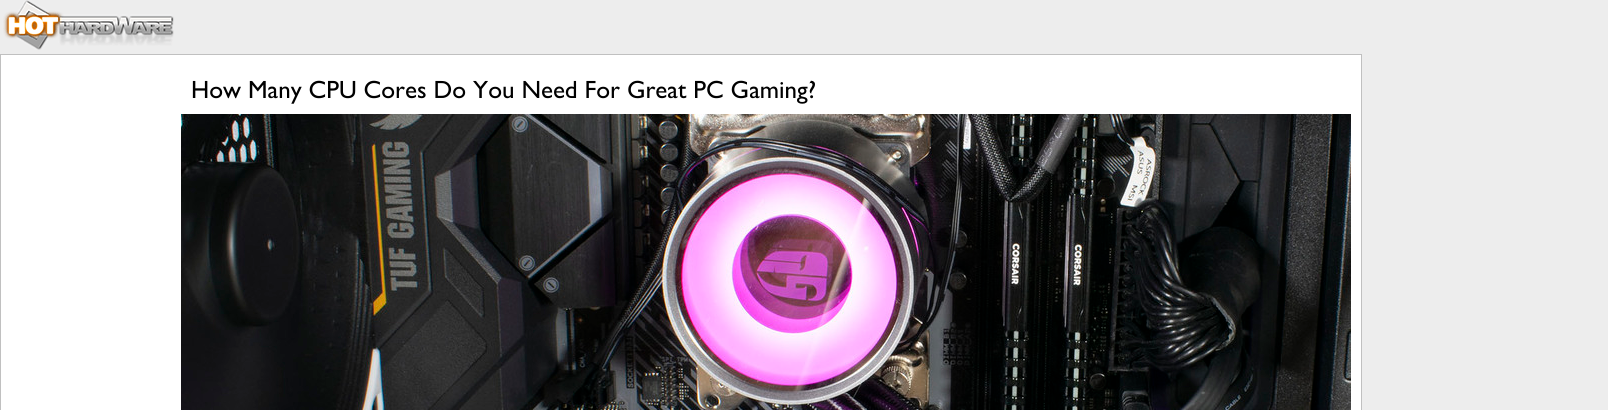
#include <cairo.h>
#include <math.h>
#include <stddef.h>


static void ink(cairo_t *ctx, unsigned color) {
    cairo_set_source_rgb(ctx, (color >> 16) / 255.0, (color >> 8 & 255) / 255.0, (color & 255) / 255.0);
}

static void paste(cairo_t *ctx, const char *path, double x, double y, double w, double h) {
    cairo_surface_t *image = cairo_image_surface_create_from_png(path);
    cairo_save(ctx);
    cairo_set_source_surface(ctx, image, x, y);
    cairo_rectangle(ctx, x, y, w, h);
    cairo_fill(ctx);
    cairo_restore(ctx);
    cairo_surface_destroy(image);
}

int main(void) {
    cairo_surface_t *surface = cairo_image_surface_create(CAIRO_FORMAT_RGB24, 1608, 410);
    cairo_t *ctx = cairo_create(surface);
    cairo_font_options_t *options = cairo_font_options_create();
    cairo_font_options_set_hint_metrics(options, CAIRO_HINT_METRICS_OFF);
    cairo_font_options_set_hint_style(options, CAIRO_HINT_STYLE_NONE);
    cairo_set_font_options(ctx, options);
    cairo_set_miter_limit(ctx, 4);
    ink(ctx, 0xEDEDED);
    cairo_paint(ctx);
    paste(ctx, "media/1.png", 3, 0, 171, 50);
    ink(ctx, 0xFFFFFF);
    cairo_rectangle(ctx, 0.5, 54.5, 1361, 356);
    cairo_fill_preserve(ctx);
    ink(ctx, 0xC0C0C0);
    cairo_set_line_width(ctx, 1);
    cairo_stroke(ctx);
    cairo_select_font_face(ctx, "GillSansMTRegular", CAIRO_FONT_SLANT_NORMAL, CAIRO_FONT_WEIGHT_NORMAL);
    cairo_set_font_size(ctx, 25);
    ink(ctx, 0x000000);
    cairo_move_to(ctx, 191, 98);
    cairo_show_text(ctx, "How Many CPU Cores Do You Need For Great PC Gaming?");
    paste(ctx, "media/2.png", 181, 114, 1170, 296);
    cairo_surface_write_to_png(surface, "image.png");
    cairo_font_options_destroy(options);
    cairo_destroy(ctx);
    cairo_surface_destroy(surface);
    return 0;
}
